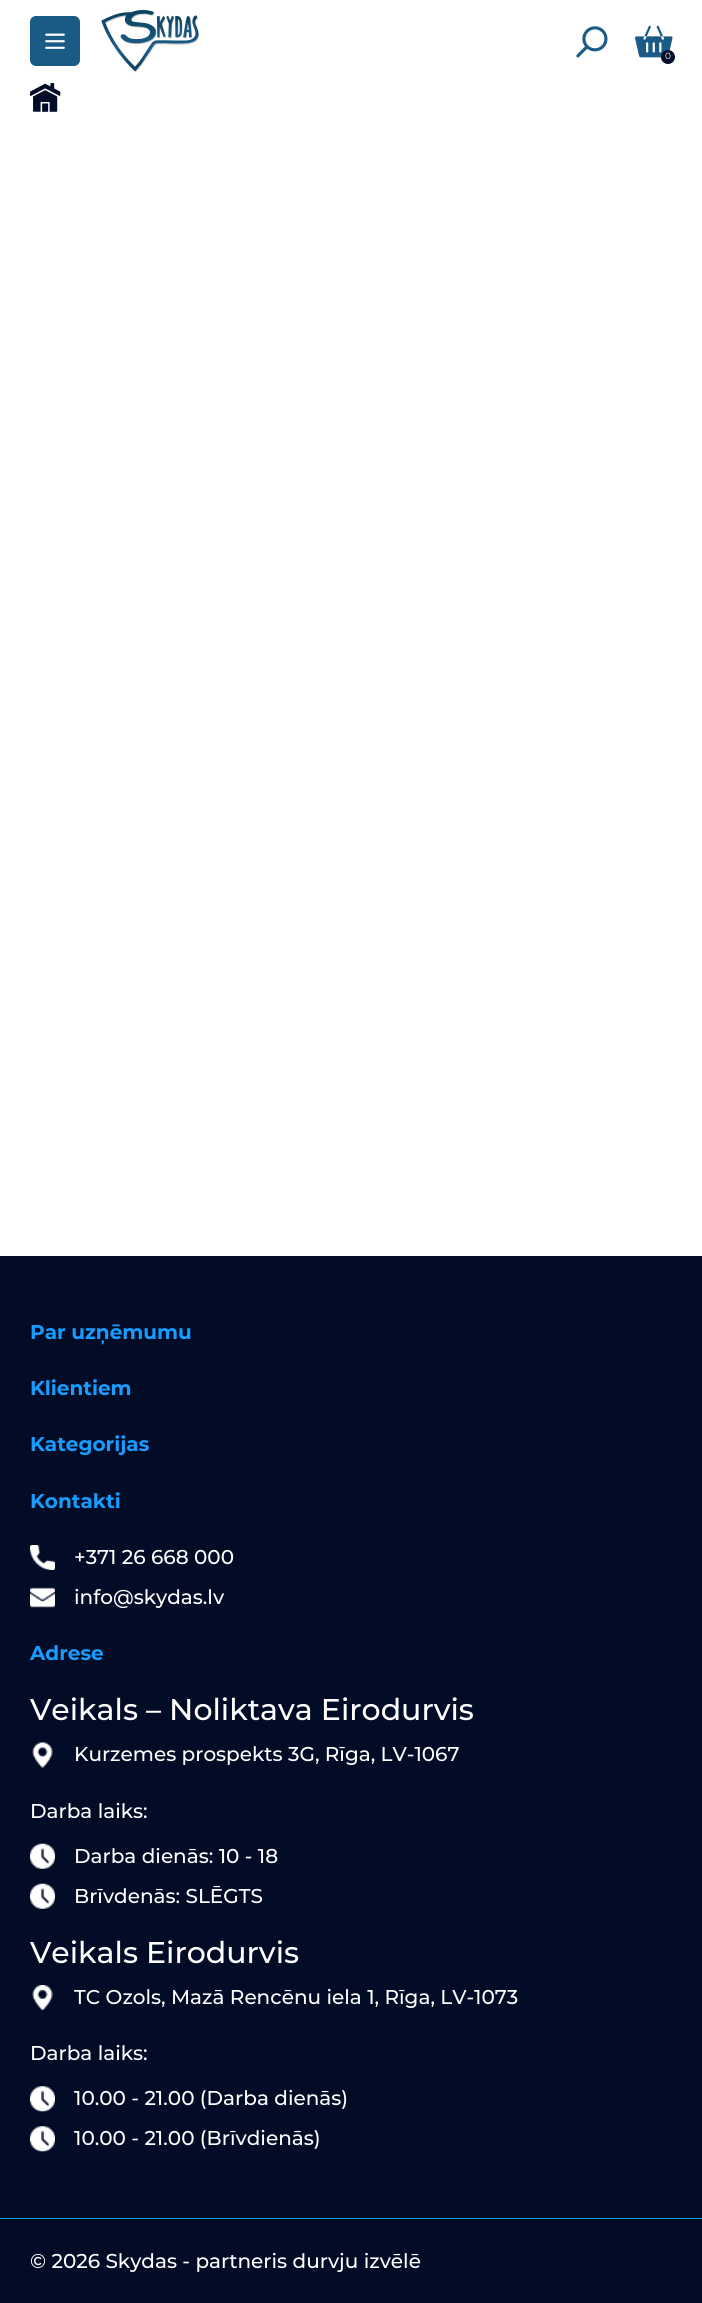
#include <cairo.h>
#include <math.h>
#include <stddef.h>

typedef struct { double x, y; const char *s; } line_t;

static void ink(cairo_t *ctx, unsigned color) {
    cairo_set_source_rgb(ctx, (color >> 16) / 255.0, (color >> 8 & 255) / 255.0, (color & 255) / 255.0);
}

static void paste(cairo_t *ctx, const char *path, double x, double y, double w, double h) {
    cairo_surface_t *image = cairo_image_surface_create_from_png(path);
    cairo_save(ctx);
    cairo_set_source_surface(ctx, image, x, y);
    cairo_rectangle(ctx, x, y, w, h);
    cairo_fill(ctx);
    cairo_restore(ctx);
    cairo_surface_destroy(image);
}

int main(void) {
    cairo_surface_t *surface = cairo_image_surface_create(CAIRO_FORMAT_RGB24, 702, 2303);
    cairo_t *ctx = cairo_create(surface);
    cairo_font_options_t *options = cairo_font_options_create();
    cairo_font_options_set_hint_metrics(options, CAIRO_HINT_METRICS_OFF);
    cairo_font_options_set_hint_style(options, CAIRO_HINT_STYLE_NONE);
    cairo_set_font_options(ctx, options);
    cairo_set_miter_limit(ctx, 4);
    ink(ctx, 0xFFFFFF);
    cairo_paint(ctx);
    paste(ctx, "media/1.png", 30, 16, 50, 50);
    paste(ctx, "media/2.png", 101, 10, 98, 63);
    paste(ctx, "media/3.png", 576, 26, 32, 32);
    paste(ctx, "media/4.png", 635, 25, 38, 33);
    ink(ctx, 0x020C27);
    cairo_arc(ctx, 668, 57, 7, 0, 2 * M_PI);
    cairo_fill(ctx);
    cairo_select_font_face(ctx, "Montserrat", CAIRO_FONT_SLANT_NORMAL, CAIRO_FONT_WEIGHT_NORMAL);
    cairo_set_font_size(ctx, 9);
    ink(ctx, 0xFFFFFF);
    cairo_move_to(ctx, 665, 59);
    cairo_show_text(ctx, "0");
    paste(ctx, "media/5.png", 30, 83, 31, 29);
    ink(ctx, 0x020C27);
    cairo_rectangle(ctx, 0, 1256, 702, 1047);
    cairo_fill(ctx);
    cairo_select_font_face(ctx, "Montserrat", CAIRO_FONT_SLANT_NORMAL, CAIRO_FONT_WEIGHT_BOLD);
    cairo_set_font_size(ctx, 20);
    ink(ctx, 0x179CFF);
    {
        static const line_t items[] = {
            {30, 1339, "Par uzņēmumu"},
            {30, 1395, "Klientiem"},
            {30, 1451, "Kategorijas"},
            {30, 1508, "Kontakti"},
        };
        for (size_t i = 0; i < sizeof items / sizeof *items; i++) {
            cairo_move_to(ctx, items[i].x, items[i].y);
            cairo_show_text(ctx, items[i].s);
        }
    }
    paste(ctx, "media/6.png", 30, 1545, 25, 25);
    cairo_select_font_face(ctx, "Montserrat Medium", CAIRO_FONT_SLANT_NORMAL, CAIRO_FONT_WEIGHT_NORMAL);
    ink(ctx, 0xFFFFFF);
    cairo_move_to(ctx, 74, 1564);
    cairo_show_text(ctx, "+371 26 668 000");
    paste(ctx, "media/7.png", 30, 1587, 25, 21);
    cairo_move_to(ctx, 74, 1604);
    cairo_show_text(ctx, "info@skydas.lv");
    cairo_select_font_face(ctx, "Montserrat", CAIRO_FONT_SLANT_NORMAL, CAIRO_FONT_WEIGHT_BOLD);
    ink(ctx, 0x179CFF);
    cairo_move_to(ctx, 30, 1660);
    cairo_show_text(ctx, "Adrese");
    cairo_select_font_face(ctx, "Montserrat Medium", CAIRO_FONT_SLANT_NORMAL, CAIRO_FONT_WEIGHT_NORMAL);
    cairo_set_font_size(ctx, 30);
    ink(ctx, 0xFFFFFF);
    cairo_move_to(ctx, 30, 1720);
    cairo_show_text(ctx, "Veikals – Noliktava Eirodurvis");
    paste(ctx, "media/8.png", 32, 1742, 21, 26);
    cairo_set_font_size(ctx, 20);
    cairo_move_to(ctx, 74, 1761);
    cairo_show_text(ctx, "Kurzemes prospekts 3G, Rīga, LV-1067");
    cairo_move_to(ctx, 30, 1818);
    cairo_show_text(ctx, "Darba laiks:");
    paste(ctx, "media/9.png", 30, 1843, 25, 26);
    cairo_move_to(ctx, 74, 1863);
    cairo_show_text(ctx, "Darba dienās: 10 - 18");
    paste(ctx, "media/10.png", 30, 1883, 25, 26);
    cairo_move_to(ctx, 74, 1903);
    cairo_show_text(ctx, "Brīvdenās: SLĒGTS");
    cairo_set_font_size(ctx, 30);
    cairo_move_to(ctx, 30, 1963);
    cairo_show_text(ctx, "Veikals Eirodurvis");
    paste(ctx, "media/11.png", 32, 1985, 21, 25);
    cairo_set_font_size(ctx, 20);
    cairo_move_to(ctx, 74, 2004);
    cairo_show_text(ctx, "TC Ozols, Mazā Rencēnu iela 1, Rīga, LV-1073");
    cairo_move_to(ctx, 30, 2060);
    cairo_show_text(ctx, "Darba laiks:");
    paste(ctx, "media/12.png", 30, 2086, 25, 26);
    cairo_move_to(ctx, 74, 2105);
    cairo_show_text(ctx, "10.00 - 21.00 (Darba dienās)");
    paste(ctx, "media/12.png", 30, 2126, 25, 26);
    cairo_move_to(ctx, 74, 2145);
    cairo_show_text(ctx, "10.00 - 21.00 (Brīvdienās)");
    ink(ctx, 0x179CFF);
    cairo_rectangle(ctx, 0, 2218, 702, 1);
    cairo_fill(ctx);
    ink(ctx, 0xFFFFFF);
    cairo_move_to(ctx, 30, 2268);
    cairo_show_text(ctx, "© 2026 Skydas - partneris durvju izvēlē");
    cairo_surface_write_to_png(surface, "image.png");
    cairo_font_options_destroy(options);
    cairo_destroy(ctx);
    cairo_surface_destroy(surface);
    return 0;
}
